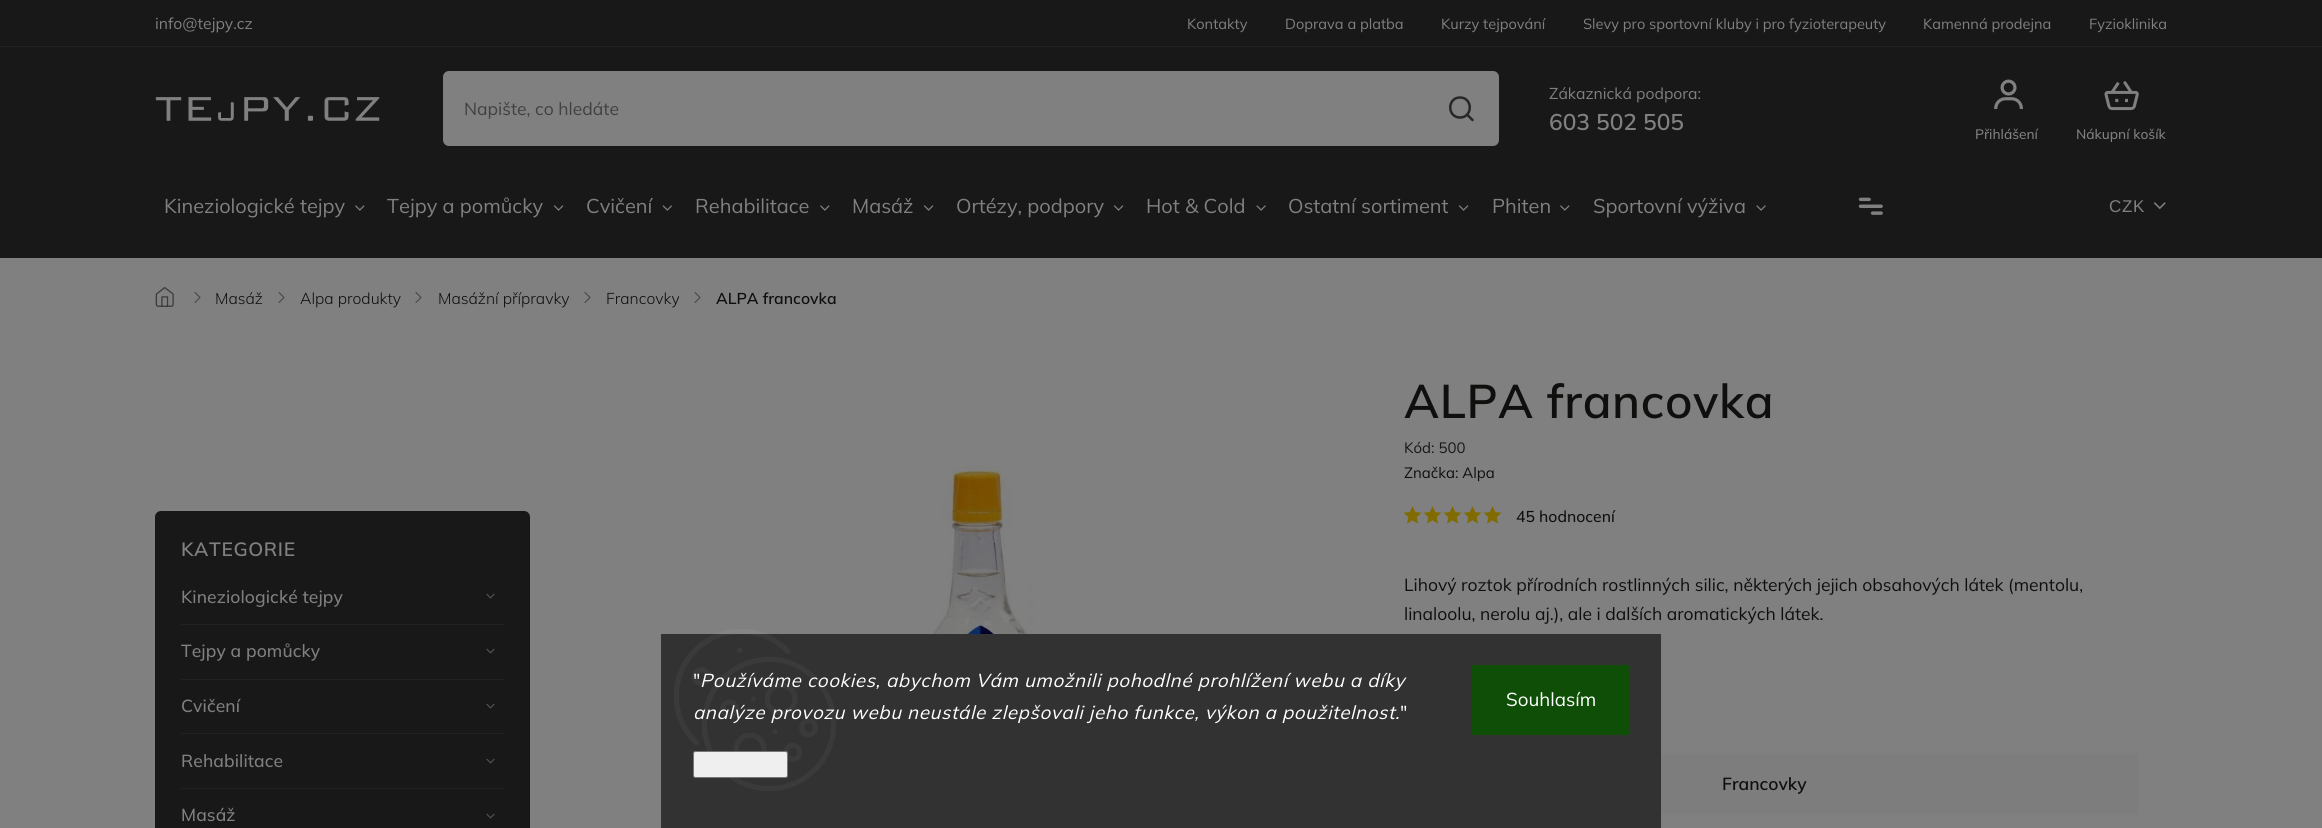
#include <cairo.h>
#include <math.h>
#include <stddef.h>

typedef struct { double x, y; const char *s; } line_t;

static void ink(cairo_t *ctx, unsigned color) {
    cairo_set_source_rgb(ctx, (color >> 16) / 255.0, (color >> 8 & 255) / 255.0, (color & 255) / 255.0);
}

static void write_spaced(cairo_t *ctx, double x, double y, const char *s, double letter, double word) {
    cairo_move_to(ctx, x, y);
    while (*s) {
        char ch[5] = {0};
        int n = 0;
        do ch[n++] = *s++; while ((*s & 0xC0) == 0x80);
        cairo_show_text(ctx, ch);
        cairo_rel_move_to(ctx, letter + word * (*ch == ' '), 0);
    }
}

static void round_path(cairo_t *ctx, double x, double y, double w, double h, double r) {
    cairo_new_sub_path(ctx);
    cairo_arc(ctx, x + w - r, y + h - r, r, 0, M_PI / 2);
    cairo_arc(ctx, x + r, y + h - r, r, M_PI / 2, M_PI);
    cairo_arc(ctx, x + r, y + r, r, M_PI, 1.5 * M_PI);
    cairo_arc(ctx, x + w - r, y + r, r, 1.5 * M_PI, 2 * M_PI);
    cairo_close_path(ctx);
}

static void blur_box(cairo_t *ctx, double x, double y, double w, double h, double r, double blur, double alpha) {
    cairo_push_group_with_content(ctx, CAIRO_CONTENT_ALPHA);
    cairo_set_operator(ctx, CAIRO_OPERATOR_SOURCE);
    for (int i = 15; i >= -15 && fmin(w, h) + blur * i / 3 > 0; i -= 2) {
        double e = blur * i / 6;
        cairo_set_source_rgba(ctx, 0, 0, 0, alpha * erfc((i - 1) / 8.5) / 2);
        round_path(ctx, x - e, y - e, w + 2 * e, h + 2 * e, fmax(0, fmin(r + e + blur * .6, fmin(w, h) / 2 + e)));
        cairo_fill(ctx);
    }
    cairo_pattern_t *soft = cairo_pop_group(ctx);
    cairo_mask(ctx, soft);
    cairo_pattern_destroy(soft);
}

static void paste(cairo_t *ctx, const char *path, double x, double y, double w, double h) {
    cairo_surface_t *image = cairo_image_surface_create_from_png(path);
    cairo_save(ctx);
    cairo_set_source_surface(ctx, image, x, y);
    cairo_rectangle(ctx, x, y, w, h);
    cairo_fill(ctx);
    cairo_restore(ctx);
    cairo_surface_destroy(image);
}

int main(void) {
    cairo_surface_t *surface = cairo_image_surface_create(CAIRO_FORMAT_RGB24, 2322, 828);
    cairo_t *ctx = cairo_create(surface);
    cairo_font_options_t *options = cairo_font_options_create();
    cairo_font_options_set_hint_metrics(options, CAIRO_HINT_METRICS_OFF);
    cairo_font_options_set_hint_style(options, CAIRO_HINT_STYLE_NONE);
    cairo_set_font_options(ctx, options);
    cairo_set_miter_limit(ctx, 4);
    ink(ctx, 0xFFFFFF);
    cairo_paint(ctx);
    ink(ctx, 0x2F2F2F);
    cairo_rectangle(ctx, 0, 0, 2322, 258);
    cairo_fill(ctx);
    ink(ctx, 0x444444);
    cairo_rectangle(ctx, 0, 46, 2322, 1);
    cairo_fill(ctx);
    cairo_select_font_face(ctx, "Mulish", CAIRO_FONT_SLANT_NORMAL, CAIRO_FONT_WEIGHT_NORMAL);
    cairo_set_font_size(ctx, 15.75);
    ink(ctx, 0xFFFFFF);
    cairo_move_to(ctx, 155, 29);
    cairo_show_text(ctx, "info@tejpy.cz");
    cairo_set_font_size(ctx, 14.6);
    {
        static const line_t items[] = {
            {1187, 29, "Kontakty"},
            {1285, 29, "Doprava a platba"},
            {1441, 29, "Kurzy tejpování"},
            {1583, 29, "Slevy pro sportovní kluby i pro fyzioterapeuty"},
            {1923, 29, "Kamenná prodejna"},
            {2089, 29, "Fyzioklinika"},
        };
        for (size_t i = 0; i < sizeof items / sizeof *items; i++) {
            cairo_move_to(ctx, items[i].x, items[i].y);
            cairo_show_text(ctx, items[i].s);
        }
    }
    paste(ctx, "media/1.png", 155, 97, 225, 24);
    round_path(ctx, 443, 71, 1056, 75, 6);
    cairo_fill(ctx);
    cairo_set_font_size(ctx, 17.5);
    ink(ctx, 0x818180);
    cairo_move_to(ctx, 464, 115);
    cairo_show_text(ctx, "Napište, co hledáte");
    cairo_new_path(ctx);
    cairo_move_to(ctx, 1460, 117.5);
    cairo_curve_to(ctx, 1473, 117.5, 1473, 97.5, 1460, 97.5);
    cairo_curve_to(ctx, 1447, 97.5, 1447, 117.5, 1460, 117.5);
    cairo_close_path(ctx);
    cairo_move_to(ctx, 1472.5, 120);
    cairo_line_to(ctx, 1467, 114.5);
    ink(ctx, 0x4D4D4D);
    cairo_set_line_width(ctx, 2.5);
    cairo_set_line_cap(ctx, CAIRO_LINE_CAP_ROUND);
    cairo_set_line_join(ctx, CAIRO_LINE_JOIN_ROUND);
    cairo_stroke(ctx);
    cairo_set_font_size(ctx, 15.75);
    ink(ctx, 0xFFFFFF);
    cairo_move_to(ctx, 1549, 99);
    cairo_show_text(ctx, "Zákaznická podpora:");
    cairo_select_font_face(ctx, "Mulish SemiBold", CAIRO_FONT_SLANT_NORMAL, CAIRO_FONT_WEIGHT_NORMAL);
    cairo_set_font_size(ctx, 22.75);
    cairo_move_to(ctx, 1549, 130);
    cairo_show_text(ctx, "603 502 505");
    paste(ctx, "media/2.png", 1994, 79, 29, 30);
    cairo_select_font_face(ctx, "Mulish Medium", CAIRO_FONT_SLANT_NORMAL, CAIRO_FONT_WEIGHT_NORMAL);
    cairo_set_font_size(ctx, 13.75);
    cairo_move_to(ctx, 1975, 139);
    cairo_show_text(ctx, "Přihlášení");
    paste(ctx, "media/3.png", 2104, 81, 35, 30);
    cairo_move_to(ctx, 2076, 139);
    cairo_show_text(ctx, "Nákupní košík");
    cairo_select_font_face(ctx, "Liberation Sans", CAIRO_FONT_SLANT_NORMAL, CAIRO_FONT_WEIGHT_NORMAL);
    cairo_set_font_size(ctx, 17);
    write_spaced(ctx, 2109, 212, "CZK", 0.62, 0);
    paste(ctx, "media/4.png", 2153, 202, 13, 8);
    cairo_select_font_face(ctx, "Mulish", CAIRO_FONT_SLANT_NORMAL, CAIRO_FONT_WEIGHT_NORMAL);
    cairo_set_font_size(ctx, 20);
    cairo_move_to(ctx, 164, 213);
    cairo_show_text(ctx, "Kineziologické tejpy");
    paste(ctx, "media/5.png", 355, 205, 10, 6);
    cairo_move_to(ctx, 387, 213);
    cairo_show_text(ctx, "Tejpy a pomůcky");
    paste(ctx, "media/6.png", 553, 205, 11, 6);
    cairo_move_to(ctx, 586, 213);
    cairo_show_text(ctx, "Cvičení");
    paste(ctx, "media/7.png", 662, 205, 10, 6);
    cairo_move_to(ctx, 695, 213);
    cairo_show_text(ctx, "Rehabilitace");
    paste(ctx, "media/5.png", 820, 205, 10, 6);
    cairo_move_to(ctx, 852, 213);
    cairo_show_text(ctx, "Masáž");
    paste(ctx, "media/6.png", 923, 205, 11, 6);
    cairo_move_to(ctx, 956, 213);
    cairo_show_text(ctx, "Ortézy, podpory");
    paste(ctx, "media/6.png", 1113, 205, 11, 6);
    cairo_move_to(ctx, 1146, 213);
    cairo_show_text(ctx, "Hot & Cold");
    paste(ctx, "media/8.png", 1256, 205, 10, 6);
    cairo_move_to(ctx, 1288, 213);
    cairo_show_text(ctx, "Ostatní sortiment");
    paste(ctx, "media/6.png", 1458, 205, 11, 6);
    cairo_move_to(ctx, 1492, 213);
    cairo_show_text(ctx, "Phiten");
    paste(ctx, "media/5.png", 1560, 205, 10, 6);
    cairo_move_to(ctx, 1593, 213);
    cairo_show_text(ctx, "Sportovní výživa");
    paste(ctx, "media/8.png", 1756, 205, 10, 6);
    paste(ctx, "media/9.png", 1858, 197, 25, 18);
    paste(ctx, "media/10.png", 155, 287, 19, 20);
    cairo_new_path(ctx);
    cairo_move_to(ctx, 195, 302.5);
    cairo_line_to(ctx, 200, 297.5);
    cairo_line_to(ctx, 195, 292.5);
    ink(ctx, 0x979797);
    cairo_set_line_width(ctx, 1.2);
    cairo_stroke(ctx);
    cairo_select_font_face(ctx, "Mulish Light", CAIRO_FONT_SLANT_NORMAL, CAIRO_FONT_WEIGHT_NORMAL);
    cairo_set_font_size(ctx, 15.75);
    ink(ctx, 0x1E1E1C);
    cairo_move_to(ctx, 215, 304);
    cairo_show_text(ctx, "Masáž");
    cairo_new_path(ctx);
    cairo_move_to(ctx, 279, 302.5);
    cairo_line_to(ctx, 284, 297.5);
    cairo_line_to(ctx, 279, 292.5);
    ink(ctx, 0x979797);
    cairo_stroke(ctx);
    ink(ctx, 0x1E1E1C);
    cairo_move_to(ctx, 300, 304);
    cairo_show_text(ctx, "Alpa produkty");
    cairo_new_path(ctx);
    cairo_move_to(ctx, 416, 302.5);
    cairo_line_to(ctx, 421, 297.5);
    cairo_line_to(ctx, 416, 292.5);
    ink(ctx, 0x979797);
    cairo_stroke(ctx);
    ink(ctx, 0x1E1E1C);
    cairo_move_to(ctx, 438, 304);
    cairo_show_text(ctx, "Masážní přípravky");
    cairo_new_path(ctx);
    cairo_move_to(ctx, 585, 302.5);
    cairo_line_to(ctx, 590, 297.5);
    cairo_line_to(ctx, 585, 292.5);
    ink(ctx, 0x979797);
    cairo_stroke(ctx);
    ink(ctx, 0x1E1E1C);
    cairo_move_to(ctx, 606, 304);
    cairo_show_text(ctx, "Francovky");
    cairo_new_path(ctx);
    cairo_move_to(ctx, 695, 302.5);
    cairo_line_to(ctx, 700, 297.5);
    cairo_line_to(ctx, 695, 292.5);
    ink(ctx, 0x979797);
    cairo_stroke(ctx);
    cairo_select_font_face(ctx, "Mulish SemiBold", CAIRO_FONT_SLANT_NORMAL, CAIRO_FONT_WEIGHT_NORMAL);
    ink(ctx, 0x1E1E1C);
    cairo_move_to(ctx, 716, 304);
    cairo_show_text(ctx, "ALPA francovka");
    ink(ctx, 0x2F2F2F);
    round_path(ctx, 155, 511, 375, 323, 6);
    cairo_fill(ctx);
    round_path(ctx, 155.5, 511.5, 374, 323, 5.5);
    cairo_set_source_rgba(ctx, 0.118, 0.118, 0.11, 0.08);
    cairo_set_line_width(ctx, 1);
    cairo_set_line_cap(ctx, CAIRO_LINE_CAP_BUTT);
    cairo_set_line_join(ctx, CAIRO_LINE_JOIN_MITER);
    cairo_stroke(ctx);
    cairo_set_font_size(ctx, 19.25);
    ink(ctx, 0xFFFFFF);
    write_spaced(ctx, 181, 556, "KATEGORIE", 0.62, 0);
    cairo_select_font_face(ctx, "Mulish Medium", CAIRO_FONT_SLANT_NORMAL, CAIRO_FONT_WEIGHT_NORMAL);
    cairo_set_font_size(ctx, 17.5);
    write_spaced(ctx, 181, 603, "Kineziologické tejpy", 0.1, 0);
    paste(ctx, "media/11.png", 486, 593, 9, 6);
    ink(ctx, 0x444444);
    cairo_rectangle(ctx, 181, 624, 323, 1);
    cairo_fill(ctx);
    ink(ctx, 0xFFFFFF);
    write_spaced(ctx, 181, 657, "Tejpy a pomůcky", 0.1, 0);
    paste(ctx, "media/11.png", 486, 648, 9, 6);
    ink(ctx, 0x444444);
    cairo_rectangle(ctx, 181, 679, 323, 1);
    cairo_fill(ctx);
    ink(ctx, 0xFFFFFF);
    write_spaced(ctx, 181, 712, "Cvičení", 0.1, 0);
    paste(ctx, "media/11.png", 486, 703, 9, 6);
    ink(ctx, 0x444444);
    cairo_rectangle(ctx, 181, 733, 323, 1);
    cairo_fill(ctx);
    ink(ctx, 0xFFFFFF);
    write_spaced(ctx, 181, 767, "Rehabilitace", 0.1, 0);
    paste(ctx, "media/11.png", 486, 758, 9, 6);
    ink(ctx, 0x444444);
    cairo_rectangle(ctx, 181, 788, 323, 1);
    cairo_fill(ctx);
    ink(ctx, 0xFFFFFF);
    write_spaced(ctx, 181, 821, "Masáž", 0.1, 0);
    paste(ctx, "media/11.png", 486, 813, 9, 6);
    paste(ctx, "media/12.png", 925, 465, 109, 169);
    cairo_select_font_face(ctx, "Mulish SemiBold", CAIRO_FONT_SLANT_NORMAL, CAIRO_FONT_WEIGHT_NORMAL);
    cairo_set_font_size(ctx, 47.25);
    ink(ctx, 0x1E1E1C);
    write_spaced(ctx, 1404, 418, "ALPA francovka", 0.62, 0);
    cairo_select_font_face(ctx, "Mulish", CAIRO_FONT_SLANT_NORMAL, CAIRO_FONT_WEIGHT_NORMAL);
    cairo_set_font_size(ctx, 15);
    ink(ctx, 0x2E2E2E);
    cairo_move_to(ctx, 1404, 453);
    cairo_show_text(ctx, "Kód: 500");
    ink(ctx, 0x1E1E1C);
    cairo_move_to(ctx, 1404, 478);
    cairo_show_text(ctx, "Značka: Alpa");
    paste(ctx, "media/13.png", 1403, 506, 19, 18);
    paste(ctx, "media/13.png", 1423, 506, 19, 18);
    paste(ctx, "media/13.png", 1443, 506, 19, 18);
    paste(ctx, "media/13.png", 1463, 506, 19, 18);
    paste(ctx, "media/13.png", 1483, 506, 19, 18);
    cairo_select_font_face(ctx, "Mulish Medium", CAIRO_FONT_SLANT_NORMAL, CAIRO_FONT_WEIGHT_NORMAL);
    cairo_set_font_size(ctx, 15.75);
    cairo_move_to(ctx, 1516, 522);
    cairo_show_text(ctx, "45 hodnocení");
    cairo_select_font_face(ctx, "Mulish", CAIRO_FONT_SLANT_NORMAL, CAIRO_FONT_WEIGHT_NORMAL);
    cairo_set_font_size(ctx, 17.5);
    cairo_move_to(ctx, 1404, 591);
    cairo_show_text(ctx, "Lihový roztok přírodních rostlinných silic, některých jejich obsahových látek (mentolu,");
    cairo_move_to(ctx, 1404, 620);
    cairo_show_text(ctx, "linaloolu, nerolu aj.), ale i dalších aromatických látek.");
    ink(ctx, 0xF9F9F9);
    cairo_rectangle(ctx, 1661, 754, 477, 60);
    cairo_fill(ctx);
    cairo_select_font_face(ctx, "Mulish SemiBold", CAIRO_FONT_SLANT_NORMAL, CAIRO_FONT_WEIGHT_NORMAL);
    ink(ctx, 0x1E1E1C);
    cairo_move_to(ctx, 1722, 790);
    cairo_show_text(ctx, "Francovky");
    ink(ctx, 0x000000);
    blur_box(ctx, -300, -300, 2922, 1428, 0, 100, 0.5);
    ink(ctx, 0x323232);
    cairo_rectangle(ctx, 661, 634, 1000, 194);
    cairo_fill(ctx);
    paste(ctx, "media/14.png", 674, 629, 162, 162);
    cairo_select_font_face(ctx, "Mulish", CAIRO_FONT_SLANT_NORMAL, CAIRO_FONT_WEIGHT_NORMAL);
    cairo_set_font_size(ctx, 18.75);
    ink(ctx, 0xFFFFFF);
    write_spaced(ctx, 693, 687, "\"", 0.62, 0);
    cairo_select_font_face(ctx, "Mulish", CAIRO_FONT_SLANT_ITALIC, CAIRO_FONT_WEIGHT_NORMAL);
    write_spaced(ctx, 700, 687, "Používáme cookies, abychom Vám umožnili pohodlné prohlížení webu a díky", 0.62, 0);
    write_spaced(ctx, 693, 719, "analýze provozu webu neustále zlepšovali jeho funkce, výkon a použitelnost.", 0.62, 0);
    cairo_select_font_face(ctx, "Mulish", CAIRO_FONT_SLANT_NORMAL, CAIRO_FONT_WEIGHT_NORMAL);
    write_spaced(ctx, 1400, 719, "\"", 0.62, 0);
    ink(ctx, 0xEFEFEF);
    round_path(ctx, 693.5, 751.5, 94, 26, 2);
    cairo_fill_preserve(ctx);
    ink(ctx, 0x767676);
    cairo_stroke(ctx);
    ink(ctx, 0x0F4E06);
    cairo_rectangle(ctx, 1471, 665, 159, 70);
    cairo_fill(ctx);
    ink(ctx, 0xFFFFFF);
    cairo_move_to(ctx, 1506, 706);
    cairo_show_text(ctx, "Souhlasím");
    cairo_surface_write_to_png(surface, "image.png");
    cairo_font_options_destroy(options);
    cairo_destroy(ctx);
    cairo_surface_destroy(surface);
    return 0;
}
